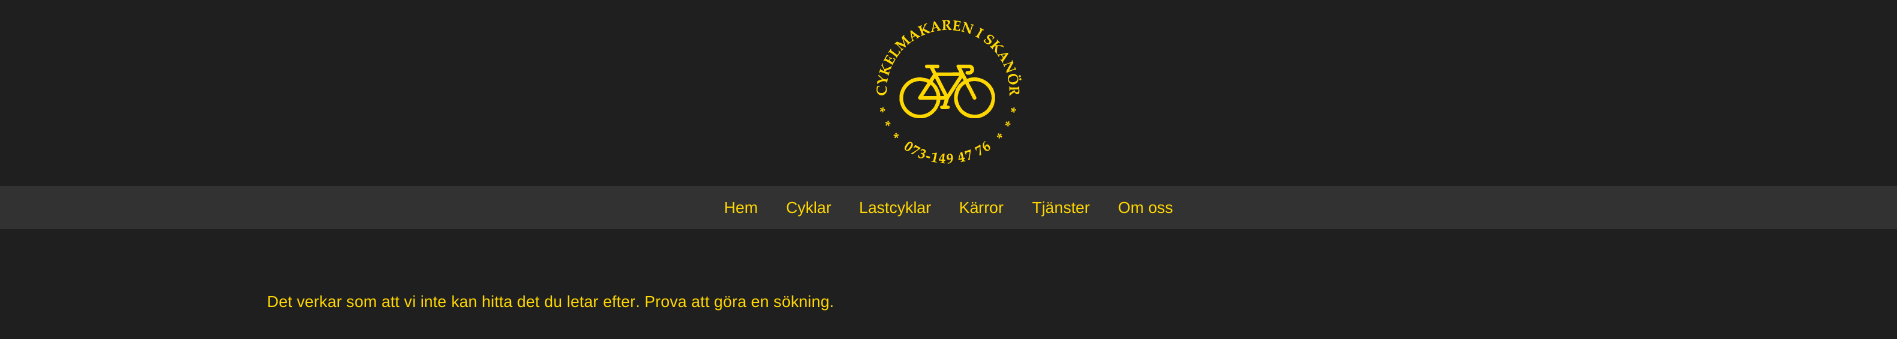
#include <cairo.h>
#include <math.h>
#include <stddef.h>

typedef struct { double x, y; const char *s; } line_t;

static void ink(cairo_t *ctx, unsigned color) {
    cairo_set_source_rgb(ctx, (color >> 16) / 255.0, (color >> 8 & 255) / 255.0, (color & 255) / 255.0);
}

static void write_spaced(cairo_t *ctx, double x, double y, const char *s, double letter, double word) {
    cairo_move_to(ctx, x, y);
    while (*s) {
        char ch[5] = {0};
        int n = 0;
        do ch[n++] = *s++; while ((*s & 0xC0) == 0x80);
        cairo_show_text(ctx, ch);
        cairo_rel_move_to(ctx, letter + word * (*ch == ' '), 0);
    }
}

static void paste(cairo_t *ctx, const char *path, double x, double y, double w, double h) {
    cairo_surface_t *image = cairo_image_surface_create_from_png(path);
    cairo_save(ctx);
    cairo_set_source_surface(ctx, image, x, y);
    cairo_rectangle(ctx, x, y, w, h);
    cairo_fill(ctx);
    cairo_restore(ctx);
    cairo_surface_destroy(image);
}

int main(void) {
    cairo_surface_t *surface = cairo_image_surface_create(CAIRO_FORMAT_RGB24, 1897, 339);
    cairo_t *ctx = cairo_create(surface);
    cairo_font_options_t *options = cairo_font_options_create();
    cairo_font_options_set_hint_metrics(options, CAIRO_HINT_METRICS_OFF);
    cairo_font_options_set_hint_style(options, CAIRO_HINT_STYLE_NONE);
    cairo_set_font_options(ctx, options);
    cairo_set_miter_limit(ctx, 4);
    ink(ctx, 0x1F1F1F);
    cairo_paint(ctx);
    paste(ctx, "media/1.png", 876, 20, 146, 144);
    ink(ctx, 0x323232);
    cairo_rectangle(ctx, 0, 186, 1897, 43);
    cairo_fill(ctx);
    cairo_select_font_face(ctx, "Liberation Sans", CAIRO_FONT_SLANT_NORMAL, CAIRO_FONT_WEIGHT_NORMAL);
    cairo_set_font_size(ctx, 16);
    ink(ctx, 0xFFD700);
    {
        static const line_t items[] = {
            {724, 213, "Hem"},
            {786, 213, "Cyklar"},
            {859, 213, "Lastcyklar"},
            {959, 213, "Kärror"},
            {1032, 213, "Tjänster"},
            {1118, 213, "Om oss"},
        };
        for (size_t i = 0; i < sizeof items / sizeof *items; i++) {
            cairo_move_to(ctx, items[i].x, items[i].y);
            cairo_show_text(ctx, items[i].s);
        }
    }
    write_spaced(ctx, 267, 307, "Det verkar som att vi inte kan hitta det du letar efter. Prova att göra en sökning.", 0.1, 0);
    cairo_surface_write_to_png(surface, "image.png");
    cairo_font_options_destroy(options);
    cairo_destroy(ctx);
    cairo_surface_destroy(surface);
    return 0;
}
